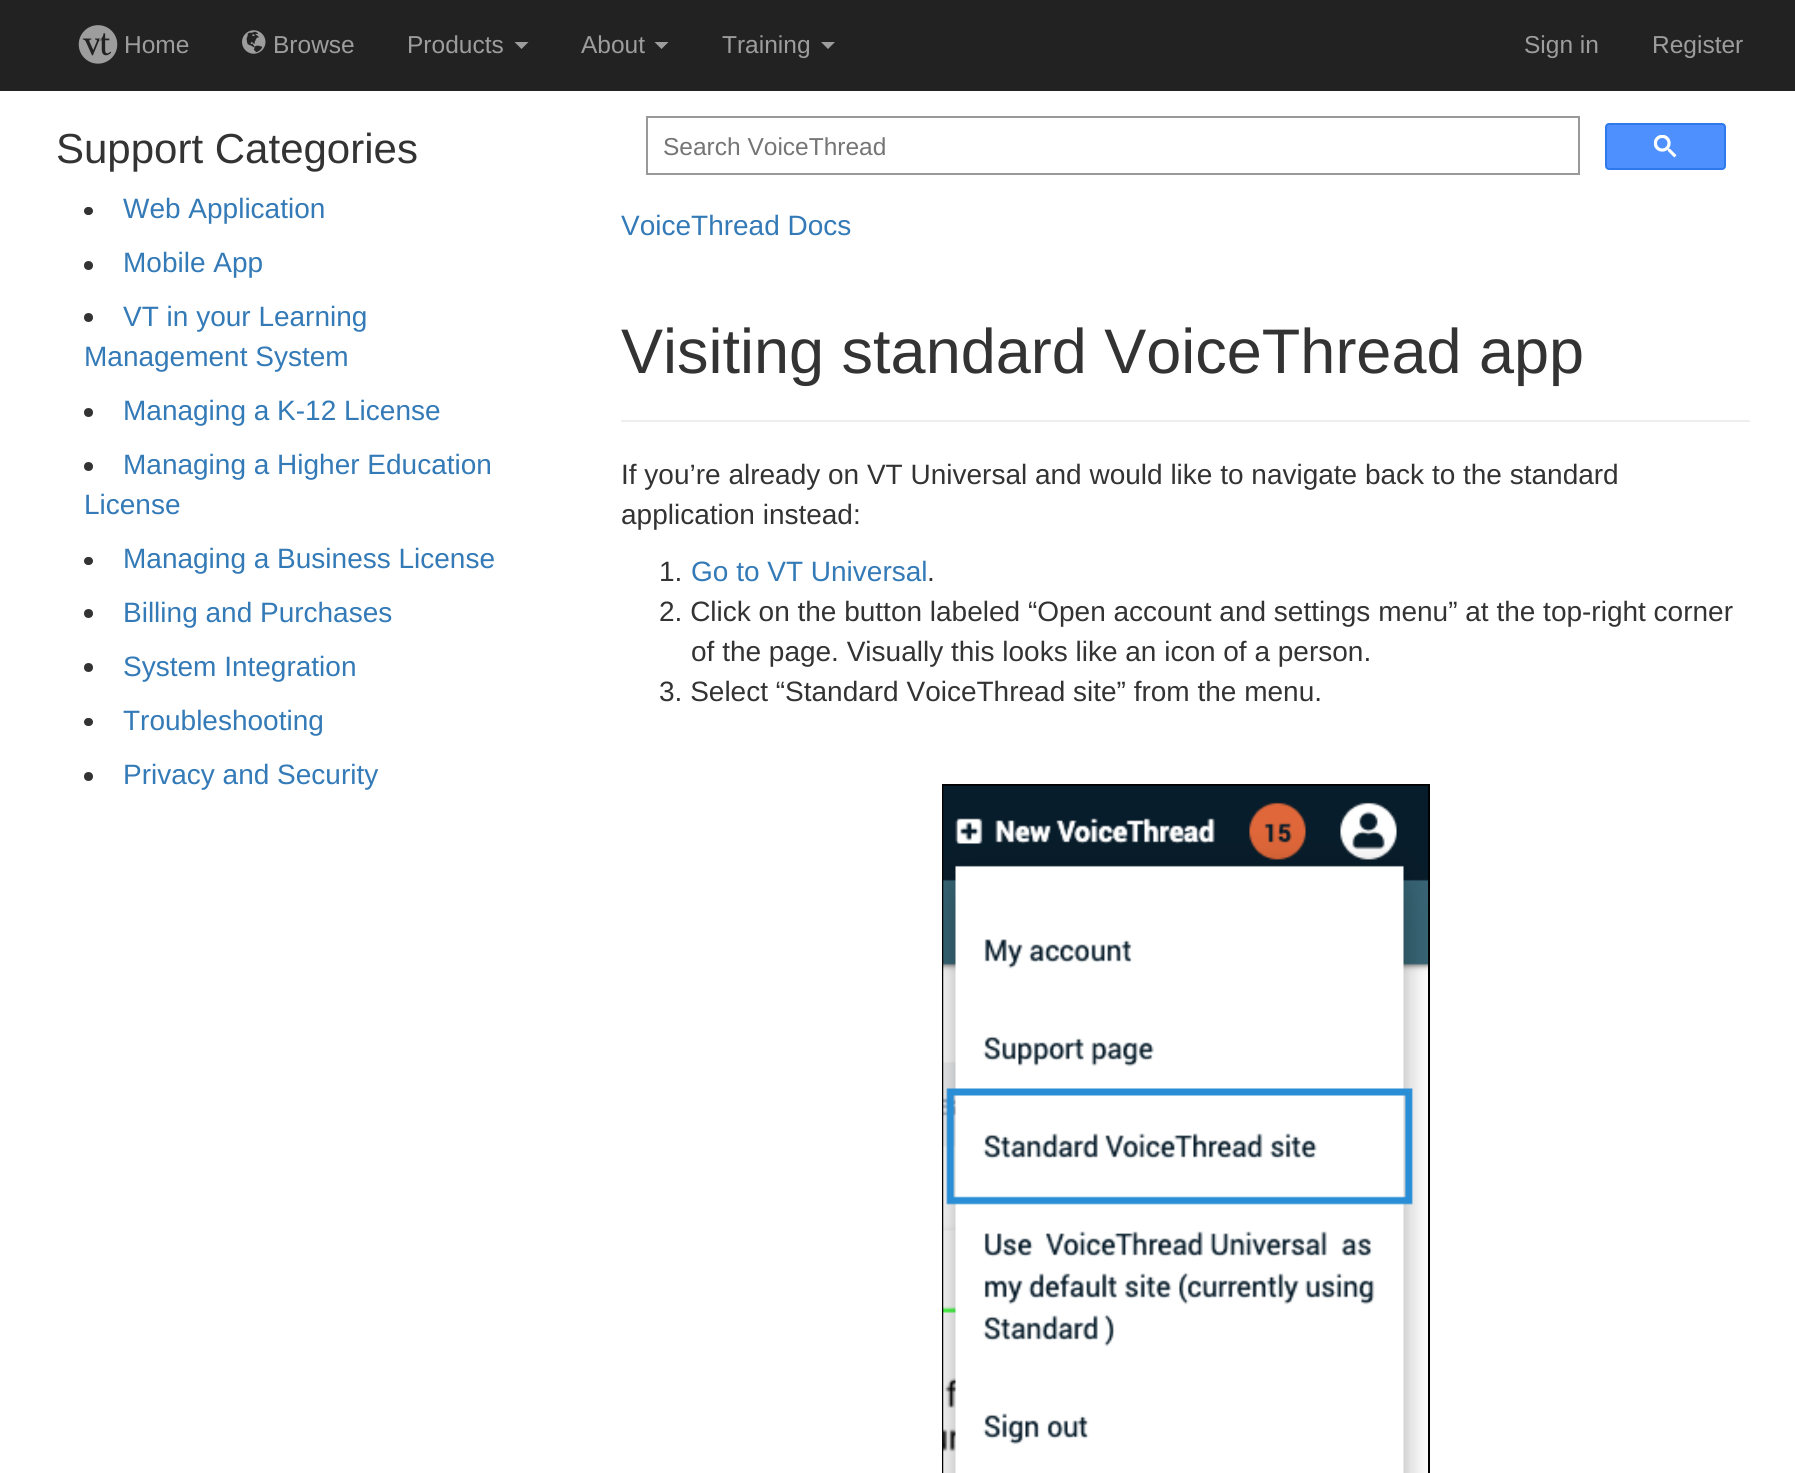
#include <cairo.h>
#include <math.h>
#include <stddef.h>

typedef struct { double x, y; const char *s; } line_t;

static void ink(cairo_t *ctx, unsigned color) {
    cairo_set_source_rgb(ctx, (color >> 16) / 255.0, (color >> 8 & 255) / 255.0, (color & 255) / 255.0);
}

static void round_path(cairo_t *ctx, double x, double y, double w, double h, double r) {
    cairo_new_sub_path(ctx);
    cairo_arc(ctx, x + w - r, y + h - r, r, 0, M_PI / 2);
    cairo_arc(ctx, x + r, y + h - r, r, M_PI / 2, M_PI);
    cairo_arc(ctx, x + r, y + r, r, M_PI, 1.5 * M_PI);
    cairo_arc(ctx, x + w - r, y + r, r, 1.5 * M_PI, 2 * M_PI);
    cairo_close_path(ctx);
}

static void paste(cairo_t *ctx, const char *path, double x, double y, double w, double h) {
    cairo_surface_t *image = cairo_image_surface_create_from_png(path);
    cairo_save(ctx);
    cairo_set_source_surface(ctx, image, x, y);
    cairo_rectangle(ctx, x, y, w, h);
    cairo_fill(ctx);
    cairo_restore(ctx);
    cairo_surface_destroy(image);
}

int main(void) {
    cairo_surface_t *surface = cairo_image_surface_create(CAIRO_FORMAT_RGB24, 1795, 1473);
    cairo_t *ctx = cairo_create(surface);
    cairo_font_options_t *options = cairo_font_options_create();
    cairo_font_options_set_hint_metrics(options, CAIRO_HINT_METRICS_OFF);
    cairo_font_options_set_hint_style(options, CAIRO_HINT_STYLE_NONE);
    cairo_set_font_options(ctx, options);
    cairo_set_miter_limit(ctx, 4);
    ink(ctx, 0xFFFFFF);
    cairo_paint(ctx);
    ink(ctx, 0x222222);
    cairo_rectangle(ctx, 0, 0, 1795, 91);
    cairo_fill(ctx);
    paste(ctx, "media/1.png", 78, 25, 40, 39);
    cairo_select_font_face(ctx, "Liberation Sans", CAIRO_FONT_SLANT_NORMAL, CAIRO_FONT_WEIGHT_NORMAL);
    cairo_set_font_size(ctx, 24.5);
    ink(ctx, 0x9D9D9D);
    cairo_move_to(ctx, 124, 53);
    cairo_show_text(ctx, "Home");
    paste(ctx, "media/2.png", 242, 30, 24, 24);
    cairo_move_to(ctx, 273, 53);
    cairo_show_text(ctx, "Browse");
    cairo_move_to(ctx, 407, 53);
    cairo_show_text(ctx, "Products");
    cairo_new_path(ctx);
    cairo_move_to(ctx, 514.5, 42);
    cairo_line_to(ctx, 528.5, 42);
    cairo_line_to(ctx, 521.5, 49);
    cairo_close_path(ctx);
    cairo_fill(ctx);
    cairo_move_to(ctx, 581, 53);
    cairo_show_text(ctx, "About");
    cairo_new_path(ctx);
    cairo_move_to(ctx, 654.5, 42);
    cairo_line_to(ctx, 668.5, 42);
    cairo_line_to(ctx, 661.5, 49);
    cairo_close_path(ctx);
    cairo_fill(ctx);
    cairo_move_to(ctx, 722, 53);
    cairo_show_text(ctx, "Training");
    cairo_new_path(ctx);
    cairo_move_to(ctx, 821, 42);
    cairo_line_to(ctx, 835, 42);
    cairo_line_to(ctx, 828, 49);
    cairo_close_path(ctx);
    cairo_fill(ctx);
    cairo_move_to(ctx, 1524, 53);
    cairo_show_text(ctx, "Sign in");
    cairo_move_to(ctx, 1652, 53);
    cairo_show_text(ctx, "Register");
    cairo_set_font_size(ctx, 42);
    ink(ctx, 0x333333);
    cairo_move_to(ctx, 56, 163);
    cairo_show_text(ctx, "Support Categories");
    round_path(ctx, 84, 207, 9, 8, 4);
    cairo_fill(ctx);
    cairo_set_font_size(ctx, 28);
    ink(ctx, 0x337AB7);
    cairo_move_to(ctx, 123, 218);
    cairo_show_text(ctx, "Web Application");
    ink(ctx, 0x333333);
    cairo_new_path(ctx);
    cairo_arc(ctx, 88.5, 265.5, 4.5, 0, 2 * M_PI);
    cairo_fill(ctx);
    ink(ctx, 0x337AB7);
    cairo_move_to(ctx, 123, 272);
    cairo_show_text(ctx, "Mobile App");
    ink(ctx, 0x333333);
    cairo_new_path(ctx);
    cairo_arc(ctx, 88.5, 317.5, 4.5, 0, 2 * M_PI);
    cairo_fill(ctx);
    ink(ctx, 0x337AB7);
    cairo_move_to(ctx, 123, 326);
    cairo_show_text(ctx, "VT in your Learning");
    cairo_move_to(ctx, 84, 366);
    cairo_show_text(ctx, "Management System");
    ink(ctx, 0x333333);
    cairo_new_path(ctx);
    cairo_arc(ctx, 88.5, 412.5, 4.5, 0, 2 * M_PI);
    cairo_fill(ctx);
    ink(ctx, 0x337AB7);
    cairo_move_to(ctx, 123, 420);
    cairo_show_text(ctx, "Managing a K-12 License");
    ink(ctx, 0x333333);
    cairo_new_path(ctx);
    cairo_arc(ctx, 88.5, 466.5, 4.5, 0, 2 * M_PI);
    cairo_fill(ctx);
    ink(ctx, 0x337AB7);
    cairo_move_to(ctx, 123, 474);
    cairo_show_text(ctx, "Managing a Higher Education");
    cairo_move_to(ctx, 84, 514);
    cairo_show_text(ctx, "License");
    ink(ctx, 0x333333);
    round_path(ctx, 84, 557, 9, 8, 4);
    cairo_fill(ctx);
    ink(ctx, 0x337AB7);
    cairo_move_to(ctx, 123, 568);
    cairo_show_text(ctx, "Managing a Business License");
    ink(ctx, 0x333333);
    cairo_new_path(ctx);
    cairo_arc(ctx, 88.5, 613.5, 4.5, 0, 2 * M_PI);
    cairo_fill(ctx);
    ink(ctx, 0x337AB7);
    cairo_move_to(ctx, 123, 622);
    cairo_show_text(ctx, "Billing and Purchases");
    ink(ctx, 0x333333);
    cairo_new_path(ctx);
    cairo_arc(ctx, 88.5, 667.5, 4.5, 0, 2 * M_PI);
    cairo_fill(ctx);
    ink(ctx, 0x337AB7);
    cairo_move_to(ctx, 123, 676);
    cairo_show_text(ctx, "System Integration");
    ink(ctx, 0x333333);
    round_path(ctx, 84, 718, 9, 8, 4);
    cairo_fill(ctx);
    ink(ctx, 0x337AB7);
    cairo_move_to(ctx, 123, 730);
    cairo_show_text(ctx, "Troubleshooting");
    ink(ctx, 0x333333);
    cairo_new_path(ctx);
    cairo_arc(ctx, 88.5, 776.5, 4.5, 0, 2 * M_PI);
    cairo_fill(ctx);
    ink(ctx, 0x337AB7);
    cairo_move_to(ctx, 123, 784);
    cairo_show_text(ctx, "Privacy and Security");
    cairo_rectangle(ctx, 647, 117, 932, 57);
    ink(ctx, 0x999999);
    cairo_stroke(ctx);
    cairo_set_font_size(ctx, 24.5);
    ink(ctx, 0x757575);
    cairo_move_to(ctx, 663, 155);
    cairo_show_text(ctx, "Search VoiceThread");
    ink(ctx, 0x4D90FE);
    round_path(ctx, 1606, 124, 119, 45, 3);
    cairo_fill_preserve(ctx);
    ink(ctx, 0x3079ED);
    cairo_stroke(ctx);
    paste(ctx, "media/3.png", 1654, 135, 23, 23);
    cairo_set_font_size(ctx, 28);
    ink(ctx, 0x337AB7);
    cairo_move_to(ctx, 621, 235);
    cairo_show_text(ctx, "VoiceThread Docs");
    ink(ctx, 0xEEEEEE);
    cairo_rectangle(ctx, 621, 420, 1129, 2);
    cairo_fill(ctx);
    cairo_set_font_size(ctx, 63);
    ink(ctx, 0x333333);
    cairo_move_to(ctx, 621, 373);
    cairo_show_text(ctx, "Visiting standard VoiceThread app");
    cairo_set_font_size(ctx, 28);
    {
        static const line_t items[] = {
            {621, 484, "If you’re already on VT Universal and would like to navigate back to the standard"},
            {621, 524, "application instead:"},
            {659, 581, "1."},
        };
        for (size_t i = 0; i < sizeof items / sizeof *items; i++) {
            cairo_move_to(ctx, items[i].x, items[i].y);
            cairo_show_text(ctx, items[i].s);
        }
    }
    ink(ctx, 0x337AB7);
    cairo_move_to(ctx, 691, 581);
    cairo_show_text(ctx, "Go to VT Universal");
    ink(ctx, 0x333333);
    {
        static const line_t items[] = {
            {927, 581, "."},
            {659, 621, "2. Click on the button labeled “Open account and settings menu” at the top-right corner"},
            {691, 661, "of the page. Visually this looks like an icon of a person."},
            {659, 701, "3. Select “Standard VoiceThread site” from the menu."},
        };
        for (size_t i = 0; i < sizeof items / sizeof *items; i++) {
            cairo_move_to(ctx, items[i].x, items[i].y);
            cairo_show_text(ctx, items[i].s);
        }
    }
    cairo_rectangle(ctx, 943, 785, 486, 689);
    ink(ctx, 0x000000);
    cairo_stroke(ctx);
    paste(ctx, "media/4.png", 943, 785, 485, 688);
    cairo_surface_write_to_png(surface, "image.png");
    cairo_font_options_destroy(options);
    cairo_destroy(ctx);
    cairo_surface_destroy(surface);
    return 0;
}
